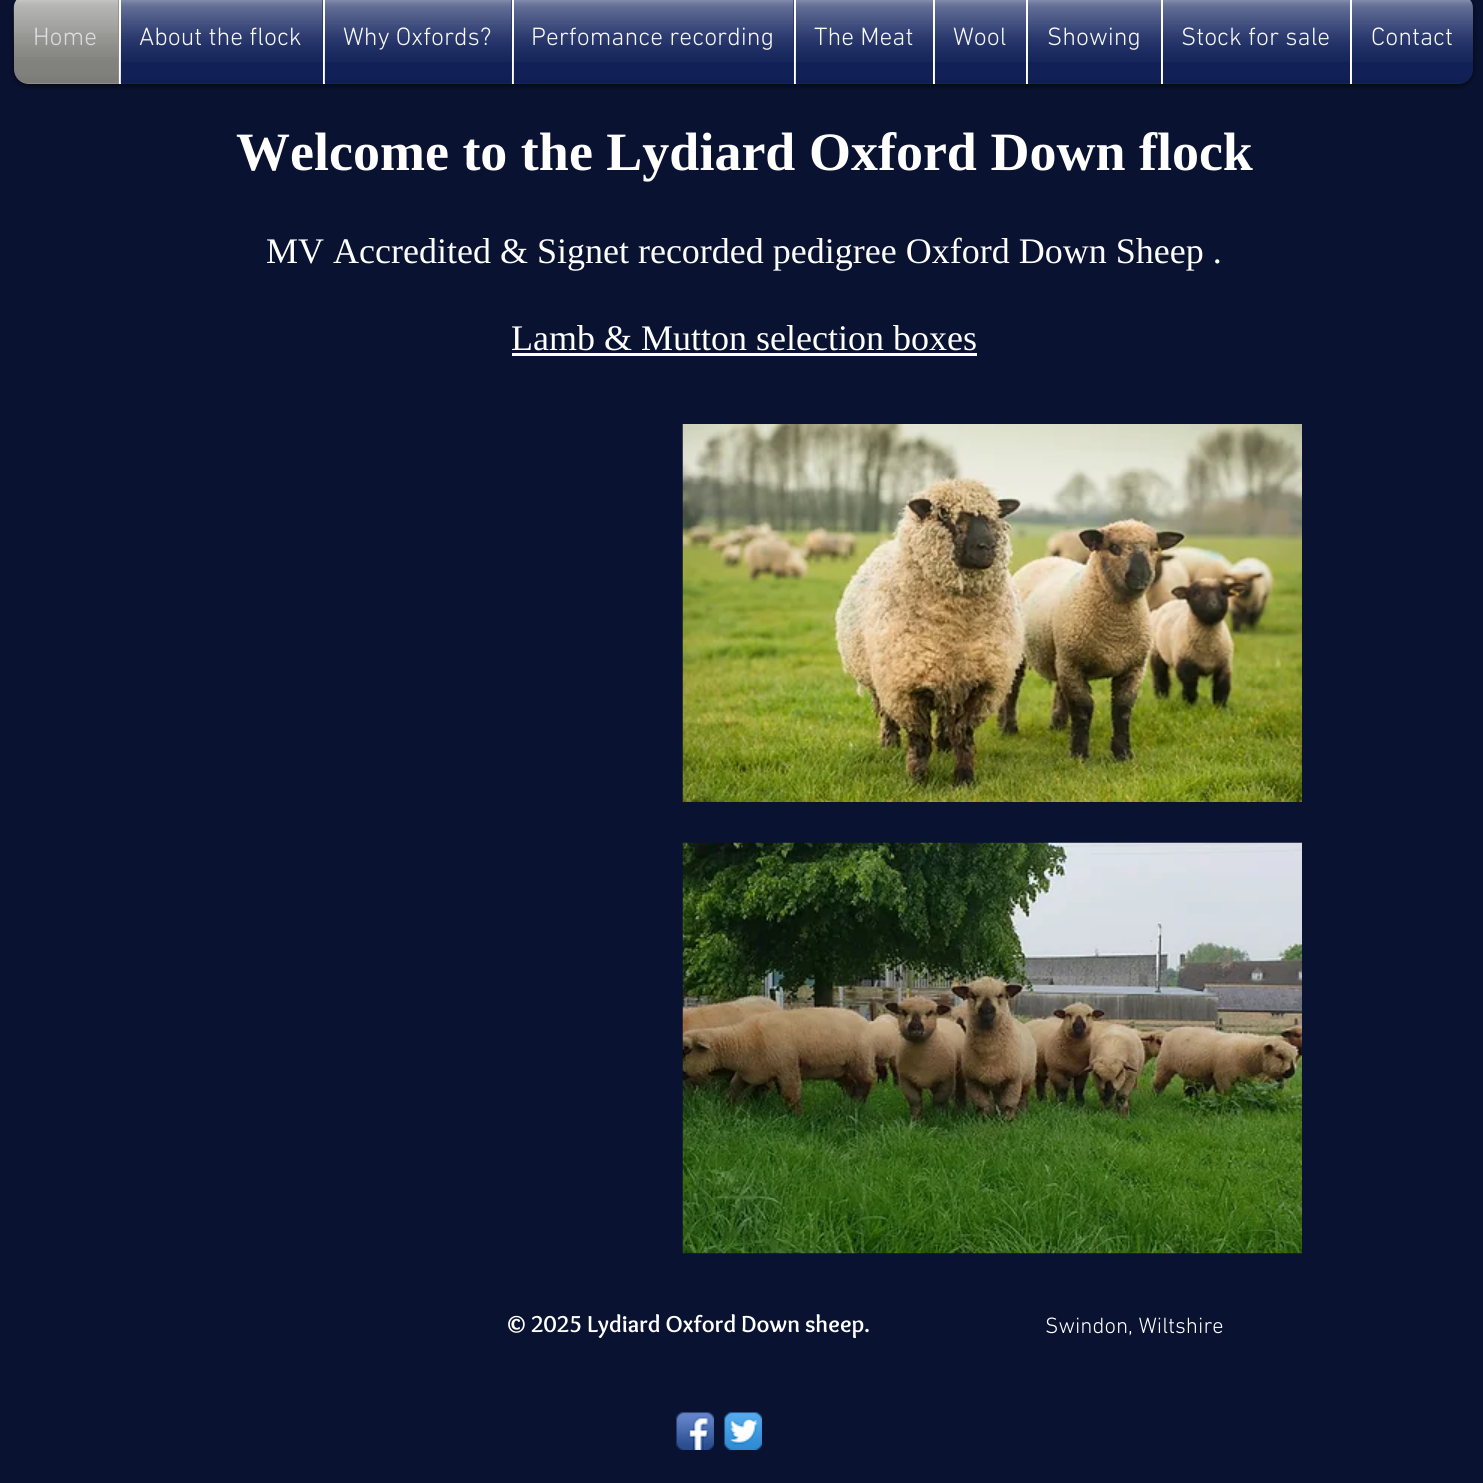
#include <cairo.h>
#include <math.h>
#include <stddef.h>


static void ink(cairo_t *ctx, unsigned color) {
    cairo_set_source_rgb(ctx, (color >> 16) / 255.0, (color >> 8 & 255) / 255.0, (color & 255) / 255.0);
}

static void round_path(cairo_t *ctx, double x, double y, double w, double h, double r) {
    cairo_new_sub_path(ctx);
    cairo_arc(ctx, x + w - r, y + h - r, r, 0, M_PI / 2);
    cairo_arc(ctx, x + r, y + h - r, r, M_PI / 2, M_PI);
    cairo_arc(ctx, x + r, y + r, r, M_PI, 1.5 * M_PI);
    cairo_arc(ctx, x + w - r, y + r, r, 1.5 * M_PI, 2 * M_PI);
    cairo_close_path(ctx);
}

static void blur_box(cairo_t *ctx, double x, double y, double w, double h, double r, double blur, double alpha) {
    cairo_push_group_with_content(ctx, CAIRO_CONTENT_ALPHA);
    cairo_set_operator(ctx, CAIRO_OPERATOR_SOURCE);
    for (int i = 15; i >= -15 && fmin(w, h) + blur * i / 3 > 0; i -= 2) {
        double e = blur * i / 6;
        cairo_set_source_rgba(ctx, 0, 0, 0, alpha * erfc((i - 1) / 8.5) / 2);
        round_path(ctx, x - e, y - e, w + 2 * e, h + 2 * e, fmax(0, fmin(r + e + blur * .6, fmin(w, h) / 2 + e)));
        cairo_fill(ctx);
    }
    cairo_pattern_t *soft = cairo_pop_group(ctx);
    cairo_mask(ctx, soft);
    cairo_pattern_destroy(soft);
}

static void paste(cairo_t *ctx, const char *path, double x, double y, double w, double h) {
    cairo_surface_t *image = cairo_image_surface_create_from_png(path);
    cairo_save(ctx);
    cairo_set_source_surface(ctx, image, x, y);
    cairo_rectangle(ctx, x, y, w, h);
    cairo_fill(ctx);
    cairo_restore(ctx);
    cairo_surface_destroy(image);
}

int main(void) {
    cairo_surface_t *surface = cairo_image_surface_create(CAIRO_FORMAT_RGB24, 1483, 1483);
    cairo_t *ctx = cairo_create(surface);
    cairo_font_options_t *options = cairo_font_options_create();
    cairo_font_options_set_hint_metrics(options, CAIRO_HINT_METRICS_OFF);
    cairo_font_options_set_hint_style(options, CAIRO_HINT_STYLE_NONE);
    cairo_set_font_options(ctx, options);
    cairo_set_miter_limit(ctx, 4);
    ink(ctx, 0x091230);
    cairo_paint(ctx);
    ink(ctx, 0x000000);
    blur_box(ctx, 14, -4, 1459, 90, 15, 3, 0.6);
    paste(ctx, "media/1.png", 13, 0, 1460, 42);
    paste(ctx, "media/2.png", 14, 69, 1459, 14);
    ink(ctx, 0x8E8E8B);
    cairo_new_path(ctx);
    cairo_move_to(ctx, 29, -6);
    cairo_line_to(ctx, 119, -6);
    cairo_line_to(ctx, 119, 84);
    cairo_line_to(ctx, 29, 84);
    cairo_curve_to(ctx, 20.5, 84, 14, 77.5, 14, 69);
    cairo_line_to(ctx, 14, 9);
    cairo_curve_to(ctx, 14, 0.5, 20.5, -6, 29, -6);
    cairo_close_path(ctx);
    cairo_fill(ctx);
    cairo_select_font_face(ctx, "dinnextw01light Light", CAIRO_FONT_SLANT_NORMAL, CAIRO_FONT_WEIGHT_NORMAL);
    cairo_set_font_size(ctx, 25.5);
    ink(ctx, 0xE0E0E0);
    cairo_move_to(ctx, 33, 45);
    cairo_show_text(ctx, "Home");
    paste(ctx, "media/3.png", 13, 0, 106, 57);
    paste(ctx, "media/4.png", 14, 33, 105, 50);
    ink(ctx, 0x132460);
    cairo_rectangle(ctx, 121, 0, 202, 84);
    cairo_fill(ctx);
    ink(ctx, 0xFFFFFF);
    cairo_rectangle(ctx, 119, 0, 2, 84);
    cairo_fill(ctx);
    cairo_move_to(ctx, 139, 45);
    cairo_show_text(ctx, "About the flock");
    paste(ctx, "media/5.png", 121, 0, 202, 62);
    paste(ctx, "media/6.png", 120, 33, 203, 51);
    ink(ctx, 0x132460);
    cairo_rectangle(ctx, 325, 0, 187, 84);
    cairo_fill(ctx);
    ink(ctx, 0xFFFFFF);
    cairo_rectangle(ctx, 323, 0, 2, 84);
    cairo_fill(ctx);
    cairo_move_to(ctx, 343, 45);
    cairo_show_text(ctx, "Why Oxfords?");
    paste(ctx, "media/7.png", 325, 0, 187, 62);
    paste(ctx, "media/8.png", 324, 33, 188, 51);
    ink(ctx, 0x132460);
    cairo_rectangle(ctx, 514, 0, 280, 84);
    cairo_fill(ctx);
    ink(ctx, 0xFFFFFF);
    cairo_rectangle(ctx, 512, 0, 2, 84);
    cairo_fill(ctx);
    cairo_move_to(ctx, 531, 45);
    cairo_show_text(ctx, "Perfomance recording");
    paste(ctx, "media/9.png", 514, 0, 280, 62);
    paste(ctx, "media/10.png", 513, 33, 281, 51);
    ink(ctx, 0x132460);
    cairo_rectangle(ctx, 796, 0, 137, 84);
    cairo_fill(ctx);
    ink(ctx, 0xFFFFFF);
    cairo_rectangle(ctx, 794, 0, 2, 84);
    cairo_fill(ctx);
    cairo_move_to(ctx, 814, 45);
    cairo_show_text(ctx, "The Meat");
    paste(ctx, "media/11.png", 796, 0, 137, 62);
    paste(ctx, "media/12.png", 795, 33, 138, 51);
    ink(ctx, 0x132460);
    cairo_rectangle(ctx, 935, 0, 91, 84);
    cairo_fill(ctx);
    ink(ctx, 0xFFFFFF);
    cairo_rectangle(ctx, 933, 0, 2, 84);
    cairo_fill(ctx);
    cairo_move_to(ctx, 953, 45);
    cairo_show_text(ctx, "Wool");
    paste(ctx, "media/13.png", 935, 0, 91, 62);
    paste(ctx, "media/14.png", 934, 33, 92, 50);
    ink(ctx, 0x132460);
    cairo_rectangle(ctx, 1028, 0, 133, 84);
    cairo_fill(ctx);
    ink(ctx, 0xFFFFFF);
    cairo_rectangle(ctx, 1026, 0, 2, 84);
    cairo_fill(ctx);
    cairo_move_to(ctx, 1047, 45);
    cairo_show_text(ctx, "Showing");
    paste(ctx, "media/15.png", 1028, 0, 133, 62);
    paste(ctx, "media/16.png", 1027, 33, 134, 50);
    ink(ctx, 0x132460);
    cairo_rectangle(ctx, 1163, 0, 187, 84);
    cairo_fill(ctx);
    ink(ctx, 0xFFFFFF);
    cairo_rectangle(ctx, 1161, 0, 2, 84);
    cairo_fill(ctx);
    cairo_move_to(ctx, 1181, 45);
    cairo_show_text(ctx, "Stock for sale");
    paste(ctx, "media/17.png", 1163, 0, 187, 62);
    paste(ctx, "media/18.png", 1162, 33, 188, 50);
    ink(ctx, 0x132460);
    cairo_new_path(ctx);
    cairo_move_to(ctx, 1350, -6);
    cairo_line_to(ctx, 1458, -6);
    cairo_curve_to(ctx, 1466.5, -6, 1473, 0.5, 1473, 9);
    cairo_line_to(ctx, 1473, 69);
    cairo_curve_to(ctx, 1473, 77.5, 1466.5, 84, 1458, 84);
    cairo_line_to(ctx, 1350, 84);
    cairo_close_path(ctx);
    cairo_fill(ctx);
    ink(ctx, 0xFFFFFF);
    cairo_rectangle(ctx, 1350, 0, 2, 84);
    cairo_fill(ctx);
    cairo_move_to(ctx, 1371, 45);
    cairo_show_text(ctx, "Contact");
    paste(ctx, "media/19.png", 1352, 0, 121, 62);
    paste(ctx, "media/20.png", 1351, 33, 122, 50);
    cairo_select_font_face(ctx, "Liberation Serif", CAIRO_FONT_SLANT_NORMAL, CAIRO_FONT_WEIGHT_BOLD);
    cairo_set_font_size(ctx, 54);
    cairo_move_to(ctx, 236, 170);
    cairo_show_text(ctx, "Welcome to the Lydiard Oxford Down flock");
    cairo_select_font_face(ctx, "Liberation Serif", CAIRO_FONT_SLANT_NORMAL, CAIRO_FONT_WEIGHT_NORMAL);
    cairo_set_font_size(ctx, 36);
    cairo_move_to(ctx, 266, 263);
    cairo_show_text(ctx, "MV Accredited & Signet recorded pedigree Oxford Down Sheep .");
    cairo_move_to(ctx, 511, 350);
    cairo_show_text(ctx, "Lamb & Mutton selection boxes");
    cairo_rectangle(ctx, 512, 353, 465, 3);
    cairo_fill(ctx);
    paste(ctx, "media/21.png", 682, 424, 620, 378);
    paste(ctx, "media/22.png", 682, 842, 620, 412);
    cairo_select_font_face(ctx, "Overlock", CAIRO_FONT_SLANT_NORMAL, CAIRO_FONT_WEIGHT_BOLD);
    cairo_set_font_size(ctx, 24);
    cairo_move_to(ctx, 505, 1332);
    cairo_show_text(ctx, "© 2025 Lydiard Oxford Down sheep.");
    cairo_select_font_face(ctx, "dinnextw01light Light", CAIRO_FONT_SLANT_NORMAL, CAIRO_FONT_WEIGHT_NORMAL);
    cairo_set_font_size(ctx, 22.5);
    cairo_move_to(ctx, 1045, 1333);
    cairo_show_text(ctx, "Swindon, Wiltshire");
    paste(ctx, "media/23.png", 676, 1412, 38, 38);
    paste(ctx, "media/24.png", 724, 1412, 38, 38);
    cairo_surface_write_to_png(surface, "image.png");
    cairo_font_options_destroy(options);
    cairo_destroy(ctx);
    cairo_surface_destroy(surface);
    return 0;
}
